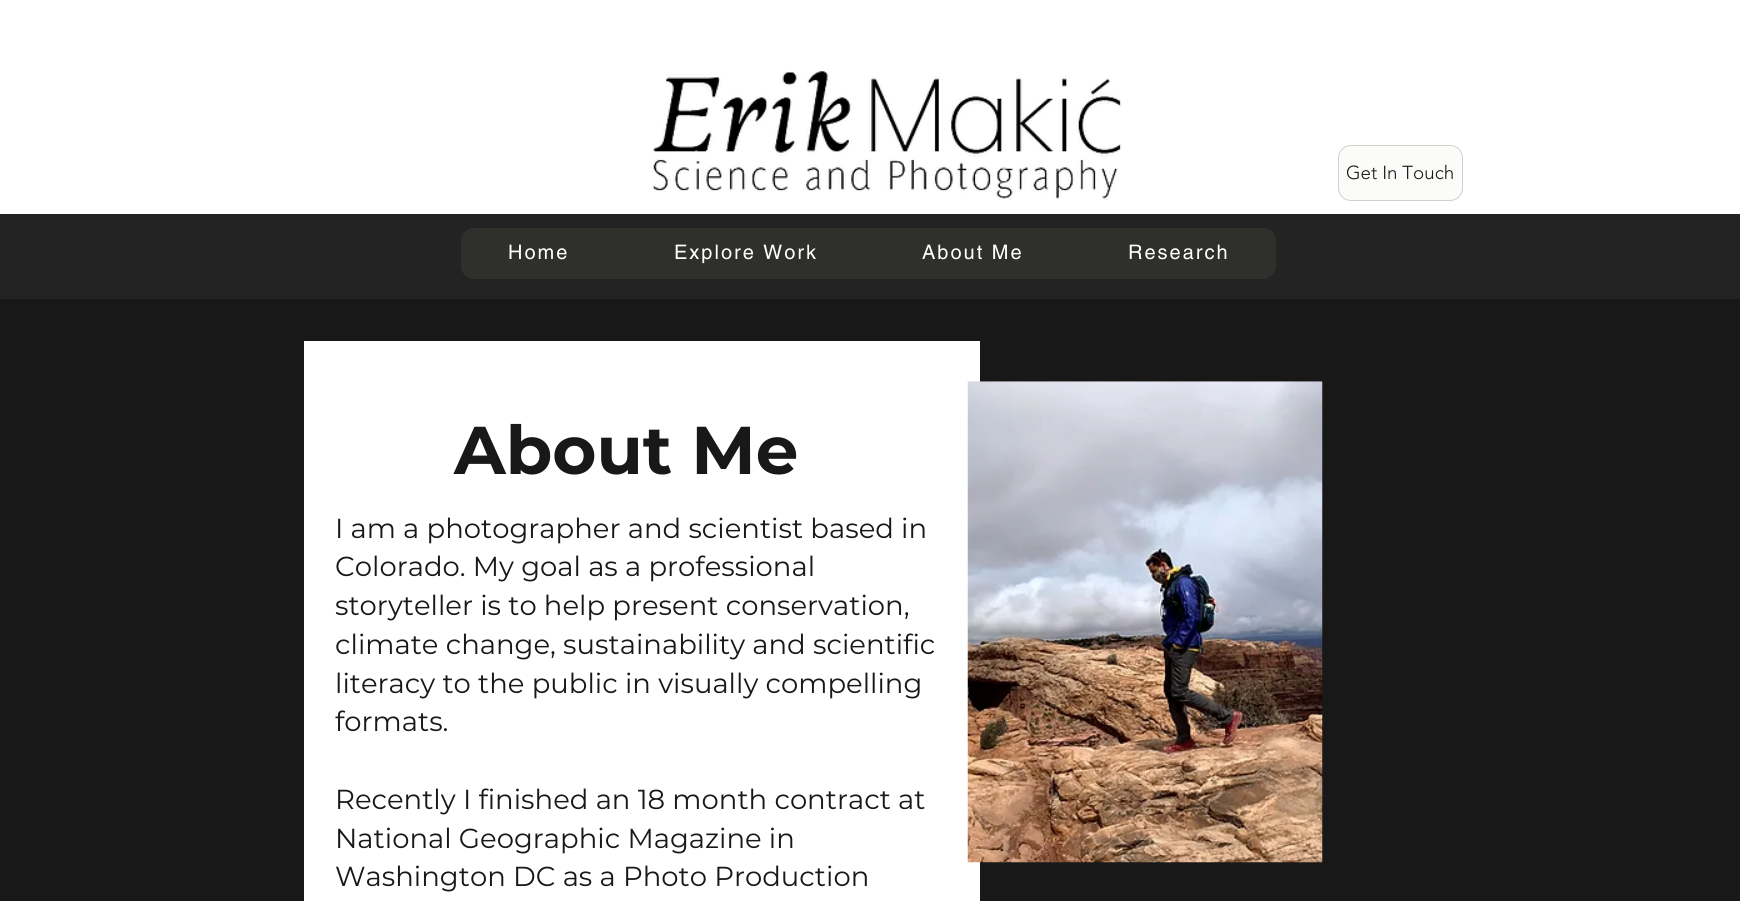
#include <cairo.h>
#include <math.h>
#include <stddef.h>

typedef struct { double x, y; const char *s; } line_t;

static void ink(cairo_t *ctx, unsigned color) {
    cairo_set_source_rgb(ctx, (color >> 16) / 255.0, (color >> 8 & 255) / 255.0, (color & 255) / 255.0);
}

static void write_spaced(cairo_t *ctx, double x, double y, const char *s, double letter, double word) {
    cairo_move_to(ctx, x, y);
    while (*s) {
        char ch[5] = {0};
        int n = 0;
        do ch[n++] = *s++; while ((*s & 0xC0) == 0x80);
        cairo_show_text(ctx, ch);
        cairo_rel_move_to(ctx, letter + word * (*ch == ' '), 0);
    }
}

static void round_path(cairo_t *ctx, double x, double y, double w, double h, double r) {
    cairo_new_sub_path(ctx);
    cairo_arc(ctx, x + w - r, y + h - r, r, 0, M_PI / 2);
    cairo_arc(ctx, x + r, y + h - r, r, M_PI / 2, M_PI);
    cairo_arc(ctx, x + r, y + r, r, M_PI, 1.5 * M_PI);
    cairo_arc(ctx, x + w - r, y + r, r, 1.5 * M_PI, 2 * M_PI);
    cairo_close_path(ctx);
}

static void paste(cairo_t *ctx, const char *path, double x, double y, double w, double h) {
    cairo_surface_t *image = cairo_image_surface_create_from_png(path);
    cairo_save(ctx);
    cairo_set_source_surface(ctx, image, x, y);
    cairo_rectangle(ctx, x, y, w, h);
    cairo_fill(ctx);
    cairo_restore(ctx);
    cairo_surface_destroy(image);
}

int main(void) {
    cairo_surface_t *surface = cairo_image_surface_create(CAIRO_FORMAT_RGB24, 1740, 901);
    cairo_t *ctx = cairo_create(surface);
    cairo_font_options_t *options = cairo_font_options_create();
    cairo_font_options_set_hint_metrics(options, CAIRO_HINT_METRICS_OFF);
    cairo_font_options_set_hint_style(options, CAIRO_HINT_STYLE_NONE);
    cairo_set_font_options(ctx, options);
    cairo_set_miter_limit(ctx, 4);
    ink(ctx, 0xFFFFFF);
    cairo_paint(ctx);
    paste(ctx, "media/1.png", 652, 71, 470, 129);
    ink(ctx, 0xFBFBF9);
    round_path(ctx, 1338, 145, 125, 56, 13);
    cairo_fill(ctx);
    round_path(ctx, 1338.5, 145.5, 124, 55, 12.5);
    cairo_set_source_rgba(ctx, 0.094, 0.094, 0.094, 0.19);
    cairo_set_line_width(ctx, 1);
    cairo_stroke(ctx);
    cairo_select_font_face(ctx, "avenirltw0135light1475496 Light", CAIRO_FONT_SLANT_NORMAL, CAIRO_FONT_WEIGHT_NORMAL);
    cairo_set_font_size(ctx, 18.75);
    ink(ctx, 0x181818);
    cairo_move_to(ctx, 1346, 179);
    cairo_show_text(ctx, "Get In Touch");
    ink(ctx, 0x242323);
    cairo_rectangle(ctx, 0, 214, 1740, 85);
    cairo_fill(ctx);
    ink(ctx, 0x2F2F2C);
    round_path(ctx, 461, 228, 815, 51, 13);
    cairo_fill(ctx);
    cairo_select_font_face(ctx, "helvetica", CAIRO_FONT_SLANT_NORMAL, CAIRO_FONT_WEIGHT_NORMAL);
    cairo_set_font_size(ctx, 20);
    ink(ctx, 0xFFFFFF);
    {
        static const line_t items[] = {
            {508, 259, "Home"},
            {674, 259, "Explore Work"},
            {922, 259, "About Me"},
            {1128, 259, "Research"},
        };
        for (size_t i = 0; i < sizeof items / sizeof *items; i++) {
            write_spaced(ctx, items[i].x, items[i].y, items[i].s, 2, 0);
        }
    }
    ink(ctx, 0x181818);
    cairo_rectangle(ctx, 0, 299, 1740, 602);
    cairo_fill(ctx);
    ink(ctx, 0xFFFFFF);
    cairo_rectangle(ctx, 304, 341, 676, 560);
    cairo_fill(ctx);
    cairo_select_font_face(ctx, "Montserrat", CAIRO_FONT_SLANT_NORMAL, CAIRO_FONT_WEIGHT_BOLD);
    cairo_set_font_size(ctx, 67.5);
    ink(ctx, 0x181818);
    cairo_move_to(ctx, 454, 474);
    cairo_show_text(ctx, "About Me");
    cairo_select_font_face(ctx, "Montserrat", CAIRO_FONT_SLANT_NORMAL, CAIRO_FONT_WEIGHT_NORMAL);
    cairo_set_font_size(ctx, 27.5);
    {
        static const line_t items[] = {
            {335, 538, "I am a photographer and scientist based in"},
            {335, 576, "Colorado. My goal as a professional"},
            {335, 615, "storyteller is to help present conservation,"},
            {335, 654, "climate change, sustainability and scientific"},
            {335, 693, "literacy to the public in visually compelling"},
            {335, 731, "formats."},
            {335, 809, "Recently I finished an 18 month contract at"},
            {335, 848, "National Geographic Magazine in"},
            {335, 886, "Washington DC as a Photo Production"},
        };
        for (size_t i = 0; i < sizeof items / sizeof *items; i++) {
            cairo_move_to(ctx, items[i].x, items[i].y);
            cairo_show_text(ctx, items[i].s);
        }
    }
    paste(ctx, "media/2.png", 967, 381, 356, 482);
    cairo_surface_write_to_png(surface, "image.png");
    cairo_font_options_destroy(options);
    cairo_destroy(ctx);
    cairo_surface_destroy(surface);
    return 0;
}
